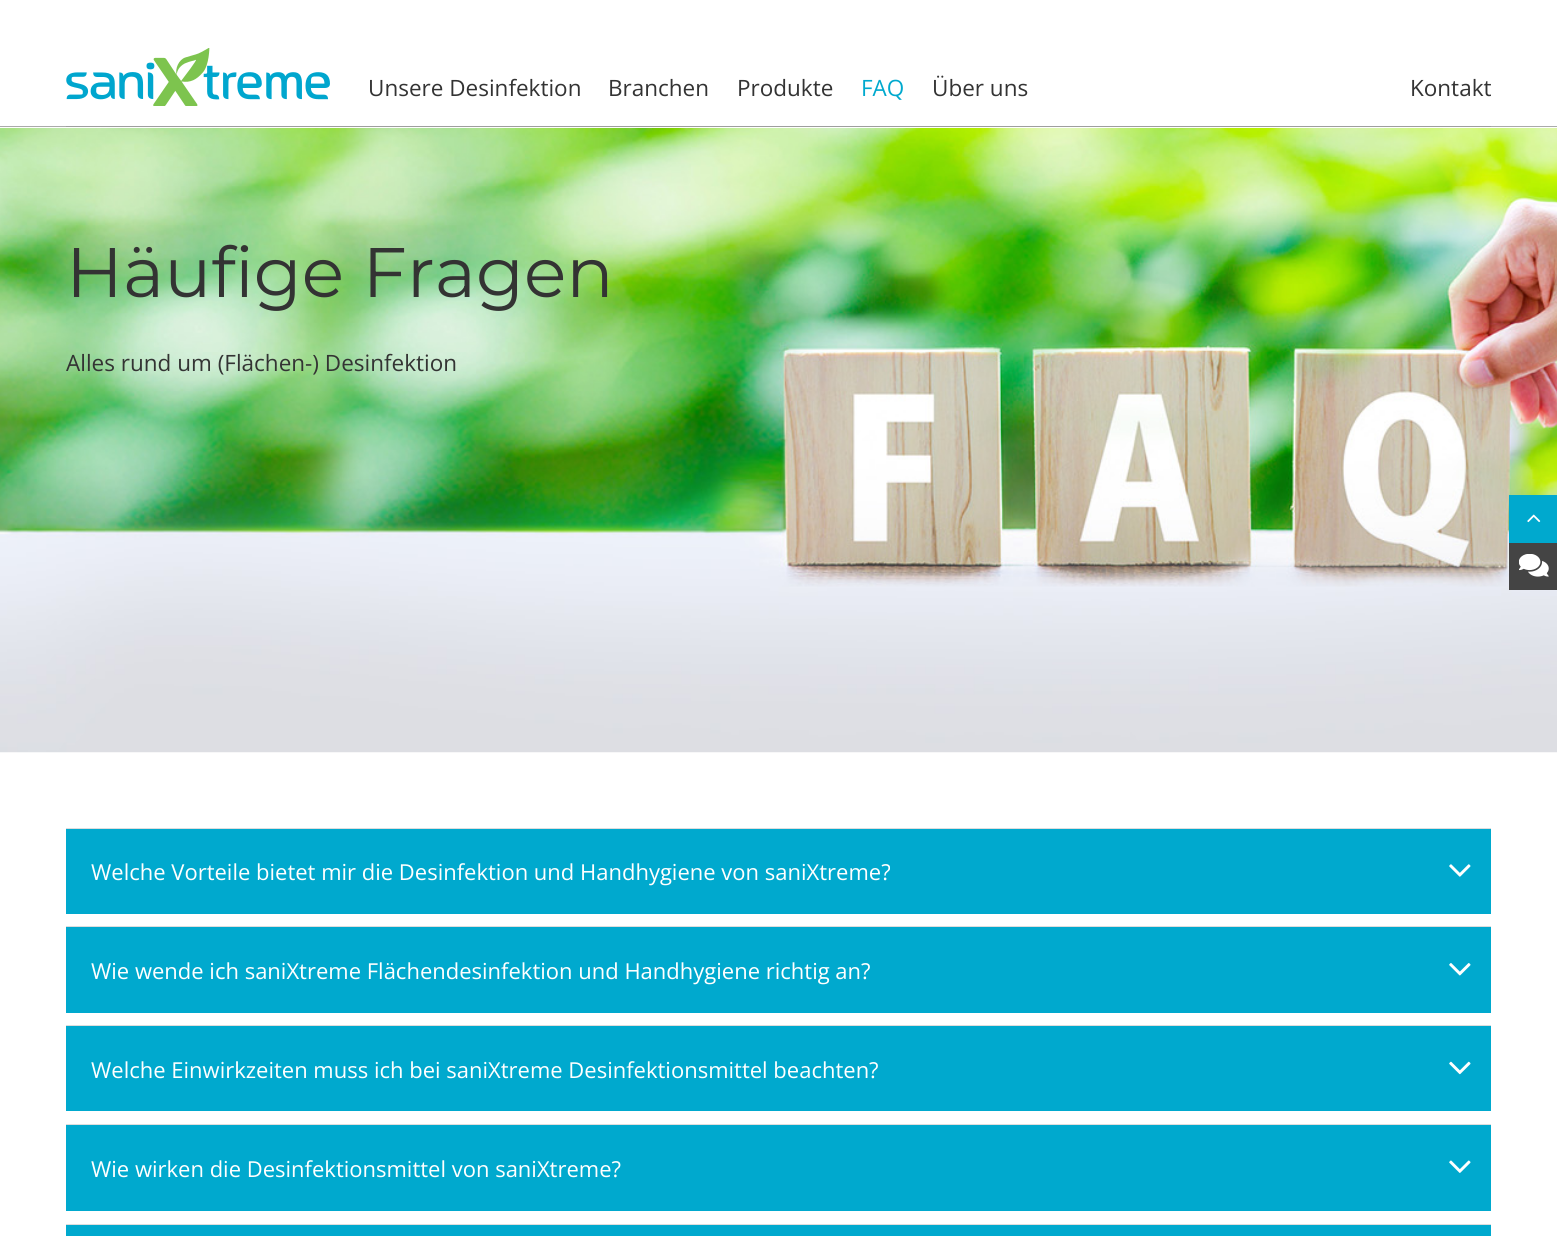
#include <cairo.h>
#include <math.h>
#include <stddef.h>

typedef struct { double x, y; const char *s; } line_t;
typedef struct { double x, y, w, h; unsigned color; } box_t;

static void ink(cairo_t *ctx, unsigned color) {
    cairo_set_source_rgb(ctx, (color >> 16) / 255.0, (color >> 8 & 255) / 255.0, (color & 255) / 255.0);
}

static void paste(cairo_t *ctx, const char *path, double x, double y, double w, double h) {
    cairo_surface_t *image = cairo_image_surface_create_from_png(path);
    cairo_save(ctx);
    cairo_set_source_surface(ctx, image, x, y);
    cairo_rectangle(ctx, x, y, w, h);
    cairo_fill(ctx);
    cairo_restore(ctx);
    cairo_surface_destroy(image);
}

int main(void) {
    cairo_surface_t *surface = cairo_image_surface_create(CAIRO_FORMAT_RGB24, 1557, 1236);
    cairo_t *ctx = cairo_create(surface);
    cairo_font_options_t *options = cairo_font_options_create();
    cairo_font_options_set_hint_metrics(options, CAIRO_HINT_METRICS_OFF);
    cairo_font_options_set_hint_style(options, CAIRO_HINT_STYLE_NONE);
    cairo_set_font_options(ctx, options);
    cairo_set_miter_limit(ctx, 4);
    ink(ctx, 0xFFFFFF);
    cairo_paint(ctx);
    ink(ctx, 0xAAAAAA);
    cairo_rectangle(ctx, 0, 126, 1557, 1);
    cairo_fill(ctx);
    paste(ctx, "media/1.png", 66, 48, 264, 58);
    cairo_select_font_face(ctx, "Open Sans", CAIRO_FONT_SLANT_NORMAL, CAIRO_FONT_WEIGHT_NORMAL);
    cairo_set_font_size(ctx, 22.5);
    ink(ctx, 0x333333);
    {
        static const line_t items[] = {
            {368, 96, "Unsere Desinfektion"},
            {608, 96, "Branchen"},
            {737, 96, "Produkte"},
        };
        for (size_t i = 0; i < sizeof items / sizeof *items; i++) {
            cairo_move_to(ctx, items[i].x, items[i].y);
            cairo_show_text(ctx, items[i].s);
        }
    }
    ink(ctx, 0x00A9CE);
    cairo_move_to(ctx, 861, 96);
    cairo_show_text(ctx, "FAQ");
    ink(ctx, 0x333333);
    cairo_move_to(ctx, 932, 96);
    cairo_show_text(ctx, "Über uns");
    cairo_move_to(ctx, 1410, 96);
    cairo_show_text(ctx, "Kontakt");
    ink(ctx, 0x9E9E9E);
    cairo_rectangle(ctx, 66, 126, 1425, 1);
    cairo_fill(ctx);
    paste(ctx, "media/2.png", 0, 127, 1557, 626);
    cairo_set_source_rgba(ctx, 1, 1, 1, 0.9);
    cairo_rectangle(ctx, 0, 127, 1557, 1);
    cairo_fill(ctx);
    cairo_select_font_face(ctx, "Montserrat Thin", CAIRO_FONT_SLANT_NORMAL, CAIRO_FONT_WEIGHT_NORMAL);
    cairo_set_font_size(ctx, 70);
    ink(ctx, 0x333333);
    cairo_move_to(ctx, 66, 297);
    cairo_show_text(ctx, "Häufige Fragen");
    cairo_select_font_face(ctx, "Open Sans", CAIRO_FONT_SLANT_NORMAL, CAIRO_FONT_WEIGHT_NORMAL);
    cairo_set_font_size(ctx, 22.5);
    cairo_move_to(ctx, 66, 371);
    cairo_show_text(ctx, "Alles rund um (Flächen-) Desinfektion");
    ink(ctx, 0x00A9CE);
    cairo_rectangle(ctx, 66, 829, 1425, 85);
    cairo_fill(ctx);
    ink(ctx, 0xDDDDDD);
    cairo_rectangle(ctx, 66, 828, 1425, 1);
    cairo_fill(ctx);
    cairo_set_font_size(ctx, 22);
    ink(ctx, 0xFFFFFF);
    cairo_move_to(ctx, 91, 880);
    cairo_show_text(ctx, "Welche Vorteile bietet mir die Desinfektion und Handhygiene von saniXtreme?");
    paste(ctx, "media/3.png", 1449, 864, 22, 13);
    ink(ctx, 0x00A9CE);
    cairo_rectangle(ctx, 66, 927, 1425, 86);
    cairo_fill(ctx);
    ink(ctx, 0xDDDDDD);
    cairo_rectangle(ctx, 66, 926, 1425, 1);
    cairo_fill(ctx);
    ink(ctx, 0xFFFFFF);
    cairo_move_to(ctx, 91, 979);
    cairo_show_text(ctx, "Wie wende ich saniXtreme Flächendesinfektion und Handhygiene richtig an?");
    paste(ctx, "media/4.png", 1449, 963, 22, 13);
    ink(ctx, 0x00A9CE);
    cairo_rectangle(ctx, 66, 1026, 1425, 85);
    cairo_fill(ctx);
    ink(ctx, 0xDDDDDD);
    cairo_rectangle(ctx, 66, 1025, 1425, 1);
    cairo_fill(ctx);
    ink(ctx, 0xFFFFFF);
    cairo_move_to(ctx, 91, 1078);
    cairo_show_text(ctx, "Welche Einwirkzeiten muss ich bei saniXtreme Desinfektionsmittel beachten?");
    paste(ctx, "media/5.png", 1449, 1061, 22, 14);
    ink(ctx, 0x00A9CE);
    cairo_rectangle(ctx, 66, 1125, 1425, 86);
    cairo_fill(ctx);
    ink(ctx, 0xDDDDDD);
    cairo_rectangle(ctx, 66, 1124, 1425, 1);
    cairo_fill(ctx);
    ink(ctx, 0xFFFFFF);
    cairo_move_to(ctx, 91, 1177);
    cairo_show_text(ctx, "Wie wirken die Desinfektionsmittel von saniXtreme?");
    paste(ctx, "media/6.png", 1449, 1160, 22, 13);
    {
        static const box_t items[] = {
            {66, 1225, 1425, 11, 0x00A9CE},
            {66, 1224, 1425, 1, 0xDDDDDD},
            {1509, 495, 48, 48, 0x00A9CE},
        };
        for (size_t i = 0; i < sizeof items / sizeof *items; i++) {
            ink(ctx, items[i].color);
            cairo_rectangle(ctx, items[i].x, items[i].y, items[i].w, items[i].h);
            cairo_fill(ctx);
        }
    }
    paste(ctx, "media/7.png", 1527, 514, 14, 9);
    ink(ctx, 0x444444);
    cairo_rectangle(ctx, 1509, 543, 48, 47);
    cairo_fill(ctx);
    paste(ctx, "media/8.png", 1519, 554, 30, 23);
    cairo_surface_write_to_png(surface, "image.png");
    cairo_font_options_destroy(options);
    cairo_destroy(ctx);
    cairo_surface_destroy(surface);
    return 0;
}
